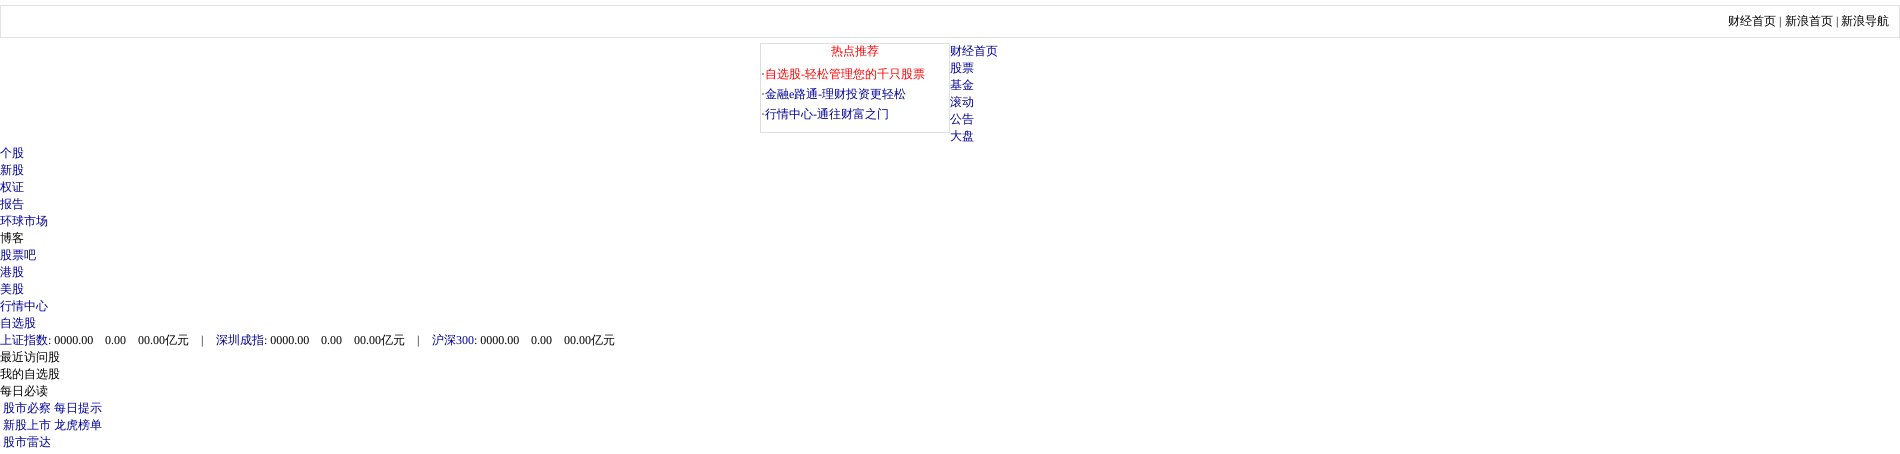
#include <cairo.h>
#include <math.h>
#include <stddef.h>

typedef struct { double x, y; const char *s; } line_t;

static void ink(cairo_t *ctx, unsigned color) {
    cairo_set_source_rgb(ctx, (color >> 16) / 255.0, (color >> 8 & 255) / 255.0, (color & 255) / 255.0);
}

int main(void) {
    cairo_surface_t *surface = cairo_image_surface_create(CAIRO_FORMAT_RGB24, 1900, 454);
    cairo_t *ctx = cairo_create(surface);
    cairo_font_options_t *options = cairo_font_options_create();
    cairo_font_options_set_hint_metrics(options, CAIRO_HINT_METRICS_OFF);
    cairo_font_options_set_hint_style(options, CAIRO_HINT_STYLE_NONE);
    cairo_set_font_options(ctx, options);
    cairo_set_miter_limit(ctx, 4);
    ink(ctx, 0xFFFFFF);
    cairo_paint(ctx);
    cairo_rectangle(ctx, 0.5, 5.5, 1899, 32);
    ink(ctx, 0xE3E3E3);
    cairo_set_line_width(ctx, 1);
    cairo_stroke(ctx);
    cairo_select_font_face(ctx, "WenQuanYi Zen Hei Medium", CAIRO_FONT_SLANT_NORMAL, CAIRO_FONT_WEIGHT_NORMAL);
    cairo_set_font_size(ctx, 12);
    ink(ctx, 0x000000);
    cairo_move_to(ctx, 1728, 25);
    cairo_show_text(ctx, "财经首页");
    cairo_select_font_face(ctx, "Liberation Serif", CAIRO_FONT_SLANT_NORMAL, CAIRO_FONT_WEIGHT_NORMAL);
    cairo_move_to(ctx, 1779, 25);
    cairo_show_text(ctx, "|");
    cairo_select_font_face(ctx, "WenQuanYi Zen Hei Medium", CAIRO_FONT_SLANT_NORMAL, CAIRO_FONT_WEIGHT_NORMAL);
    cairo_move_to(ctx, 1785, 25);
    cairo_show_text(ctx, "新浪首页");
    cairo_select_font_face(ctx, "Liberation Serif", CAIRO_FONT_SLANT_NORMAL, CAIRO_FONT_WEIGHT_NORMAL);
    cairo_move_to(ctx, 1836, 25);
    cairo_show_text(ctx, "|");
    cairo_select_font_face(ctx, "WenQuanYi Zen Hei Medium", CAIRO_FONT_SLANT_NORMAL, CAIRO_FONT_WEIGHT_NORMAL);
    cairo_move_to(ctx, 1841, 25);
    cairo_show_text(ctx, "新浪导航");
    ink(ctx, 0x000099);
    {
        static const line_t items[] = {
            {950, 55, "财经首页"},
            {950, 72, "股票"},
            {950, 89, "基金"},
            {950, 106, "滚动"},
            {950, 123, "公告"},
            {950, 140, "大盘"},
            {0, 157, "个股"},
            {0, 174, "新股"},
            {0, 191, "权证"},
            {0, 208, "报告"},
            {0, 225, "环球市场"},
        };
        for (size_t i = 0; i < sizeof items / sizeof *items; i++) {
            cairo_move_to(ctx, items[i].x, items[i].y);
            cairo_show_text(ctx, items[i].s);
        }
    }
    ink(ctx, 0x000000);
    cairo_move_to(ctx, 0, 242);
    cairo_show_text(ctx, "博客");
    ink(ctx, 0x000099);
    {
        static const line_t items[] = {
            {0, 259, "股票吧"},
            {0, 276, "港股"},
            {0, 293, "美股"},
            {0, 310, "行情中心"},
            {0, 327, "自选股"},
        };
        for (size_t i = 0; i < sizeof items / sizeof *items; i++) {
            cairo_move_to(ctx, items[i].x, items[i].y);
            cairo_show_text(ctx, items[i].s);
        }
    }
    cairo_rectangle(ctx, 760.5, 43.5, 189, 89);
    ink(ctx, 0xDEDEDE);
    cairo_stroke(ctx);
    ink(ctx, 0xFF0000);
    cairo_move_to(ctx, 831, 55);
    cairo_show_text(ctx, "热点推荐");
    cairo_select_font_face(ctx, "Liberation Serif", CAIRO_FONT_SLANT_NORMAL, CAIRO_FONT_WEIGHT_NORMAL);
    ink(ctx, 0x000000);
    cairo_move_to(ctx, 761, 78);
    cairo_show_text(ctx, "·");
    cairo_select_font_face(ctx, "WenQuanYi Zen Hei Medium", CAIRO_FONT_SLANT_NORMAL, CAIRO_FONT_WEIGHT_NORMAL);
    ink(ctx, 0xFF0000);
    cairo_move_to(ctx, 765, 78);
    cairo_show_text(ctx, "自选股");
    cairo_select_font_face(ctx, "Liberation Serif", CAIRO_FONT_SLANT_NORMAL, CAIRO_FONT_WEIGHT_NORMAL);
    cairo_move_to(ctx, 801, 78);
    cairo_show_text(ctx, "-");
    cairo_select_font_face(ctx, "WenQuanYi Zen Hei Medium", CAIRO_FONT_SLANT_NORMAL, CAIRO_FONT_WEIGHT_NORMAL);
    cairo_move_to(ctx, 805, 78);
    cairo_show_text(ctx, "轻松管理您的千只股票");
    cairo_select_font_face(ctx, "Liberation Serif", CAIRO_FONT_SLANT_NORMAL, CAIRO_FONT_WEIGHT_NORMAL);
    ink(ctx, 0x000000);
    cairo_move_to(ctx, 761, 98);
    cairo_show_text(ctx, "·");
    cairo_select_font_face(ctx, "WenQuanYi Zen Hei Medium", CAIRO_FONT_SLANT_NORMAL, CAIRO_FONT_WEIGHT_NORMAL);
    ink(ctx, 0x000099);
    cairo_move_to(ctx, 765, 98);
    cairo_show_text(ctx, "金融");
    cairo_select_font_face(ctx, "Liberation Serif", CAIRO_FONT_SLANT_NORMAL, CAIRO_FONT_WEIGHT_NORMAL);
    cairo_move_to(ctx, 789, 98);
    cairo_show_text(ctx, "e");
    cairo_select_font_face(ctx, "WenQuanYi Zen Hei Medium", CAIRO_FONT_SLANT_NORMAL, CAIRO_FONT_WEIGHT_NORMAL);
    cairo_move_to(ctx, 794, 98);
    cairo_show_text(ctx, "路通");
    cairo_select_font_face(ctx, "Liberation Serif", CAIRO_FONT_SLANT_NORMAL, CAIRO_FONT_WEIGHT_NORMAL);
    cairo_move_to(ctx, 818, 98);
    cairo_show_text(ctx, "-");
    cairo_select_font_face(ctx, "WenQuanYi Zen Hei Medium", CAIRO_FONT_SLANT_NORMAL, CAIRO_FONT_WEIGHT_NORMAL);
    cairo_move_to(ctx, 822, 98);
    cairo_show_text(ctx, "理财投资更轻松");
    cairo_select_font_face(ctx, "Liberation Serif", CAIRO_FONT_SLANT_NORMAL, CAIRO_FONT_WEIGHT_NORMAL);
    ink(ctx, 0x000000);
    cairo_move_to(ctx, 761, 118);
    cairo_show_text(ctx, "·");
    cairo_select_font_face(ctx, "WenQuanYi Zen Hei Medium", CAIRO_FONT_SLANT_NORMAL, CAIRO_FONT_WEIGHT_NORMAL);
    ink(ctx, 0x000099);
    cairo_move_to(ctx, 765, 118);
    cairo_show_text(ctx, "行情中心");
    cairo_select_font_face(ctx, "Liberation Serif", CAIRO_FONT_SLANT_NORMAL, CAIRO_FONT_WEIGHT_NORMAL);
    cairo_move_to(ctx, 813, 118);
    cairo_show_text(ctx, "-");
    cairo_select_font_face(ctx, "WenQuanYi Zen Hei Medium", CAIRO_FONT_SLANT_NORMAL, CAIRO_FONT_WEIGHT_NORMAL);
    cairo_move_to(ctx, 817, 118);
    cairo_show_text(ctx, "通往财富之门");
    cairo_move_to(ctx, 0, 344);
    cairo_show_text(ctx, "上证指数");
    cairo_select_font_face(ctx, "Liberation Serif", CAIRO_FONT_SLANT_NORMAL, CAIRO_FONT_WEIGHT_NORMAL);
    ink(ctx, 0x000000);
    {
        static const line_t items[] = {
            {48, 344, ": 0000.00"},
            {105, 344, "0.00"},
            {138, 344, "00.00"},
        };
        for (size_t i = 0; i < sizeof items / sizeof *items; i++) {
            cairo_move_to(ctx, items[i].x, items[i].y);
            cairo_show_text(ctx, items[i].s);
        }
    }
    cairo_select_font_face(ctx, "WenQuanYi Zen Hei Medium", CAIRO_FONT_SLANT_NORMAL, CAIRO_FONT_WEIGHT_NORMAL);
    cairo_move_to(ctx, 165, 344);
    cairo_show_text(ctx, "亿元");
    cairo_select_font_face(ctx, "Liberation Serif", CAIRO_FONT_SLANT_NORMAL, CAIRO_FONT_WEIGHT_NORMAL);
    cairo_move_to(ctx, 201, 344);
    cairo_show_text(ctx, "|");
    cairo_select_font_face(ctx, "WenQuanYi Zen Hei Medium", CAIRO_FONT_SLANT_NORMAL, CAIRO_FONT_WEIGHT_NORMAL);
    ink(ctx, 0x000099);
    cairo_move_to(ctx, 216, 344);
    cairo_show_text(ctx, "深圳成指");
    cairo_select_font_face(ctx, "Liberation Serif", CAIRO_FONT_SLANT_NORMAL, CAIRO_FONT_WEIGHT_NORMAL);
    ink(ctx, 0x000000);
    {
        static const line_t items[] = {
            {264, 344, ": 0000.00"},
            {321, 344, "0.00"},
            {354, 344, "00.00"},
        };
        for (size_t i = 0; i < sizeof items / sizeof *items; i++) {
            cairo_move_to(ctx, items[i].x, items[i].y);
            cairo_show_text(ctx, items[i].s);
        }
    }
    cairo_select_font_face(ctx, "WenQuanYi Zen Hei Medium", CAIRO_FONT_SLANT_NORMAL, CAIRO_FONT_WEIGHT_NORMAL);
    cairo_move_to(ctx, 381, 344);
    cairo_show_text(ctx, "亿元");
    cairo_select_font_face(ctx, "Liberation Serif", CAIRO_FONT_SLANT_NORMAL, CAIRO_FONT_WEIGHT_NORMAL);
    cairo_move_to(ctx, 417, 344);
    cairo_show_text(ctx, "|");
    cairo_select_font_face(ctx, "WenQuanYi Zen Hei Medium", CAIRO_FONT_SLANT_NORMAL, CAIRO_FONT_WEIGHT_NORMAL);
    ink(ctx, 0x000099);
    cairo_move_to(ctx, 432, 344);
    cairo_show_text(ctx, "沪深");
    cairo_select_font_face(ctx, "Liberation Serif", CAIRO_FONT_SLANT_NORMAL, CAIRO_FONT_WEIGHT_NORMAL);
    cairo_move_to(ctx, 456, 344);
    cairo_show_text(ctx, "300");
    ink(ctx, 0x000000);
    {
        static const line_t items[] = {
            {474, 344, ": 0000.00"},
            {531, 344, "0.00"},
            {564, 344, "00.00"},
        };
        for (size_t i = 0; i < sizeof items / sizeof *items; i++) {
            cairo_move_to(ctx, items[i].x, items[i].y);
            cairo_show_text(ctx, items[i].s);
        }
    }
    cairo_select_font_face(ctx, "WenQuanYi Zen Hei Medium", CAIRO_FONT_SLANT_NORMAL, CAIRO_FONT_WEIGHT_NORMAL);
    {
        static const line_t items[] = {
            {591, 344, "亿元"},
            {0, 361, "最近访问股"},
            {0, 378, "我的自选股"},
            {0, 395, "每日必读"},
        };
        for (size_t i = 0; i < sizeof items / sizeof *items; i++) {
            cairo_move_to(ctx, items[i].x, items[i].y);
            cairo_show_text(ctx, items[i].s);
        }
    }
    ink(ctx, 0x000099);
    {
        static const line_t items[] = {
            {3, 412, "股市必察"},
            {54, 412, "每日提示"},
            {3, 429, "新股上市"},
            {54, 429, "龙虎榜单"},
            {3, 446, "股市雷达"},
        };
        for (size_t i = 0; i < sizeof items / sizeof *items; i++) {
            cairo_move_to(ctx, items[i].x, items[i].y);
            cairo_show_text(ctx, items[i].s);
        }
    }
    cairo_surface_write_to_png(surface, "image.png");
    cairo_font_options_destroy(options);
    cairo_destroy(ctx);
    cairo_surface_destroy(surface);
    return 0;
}
